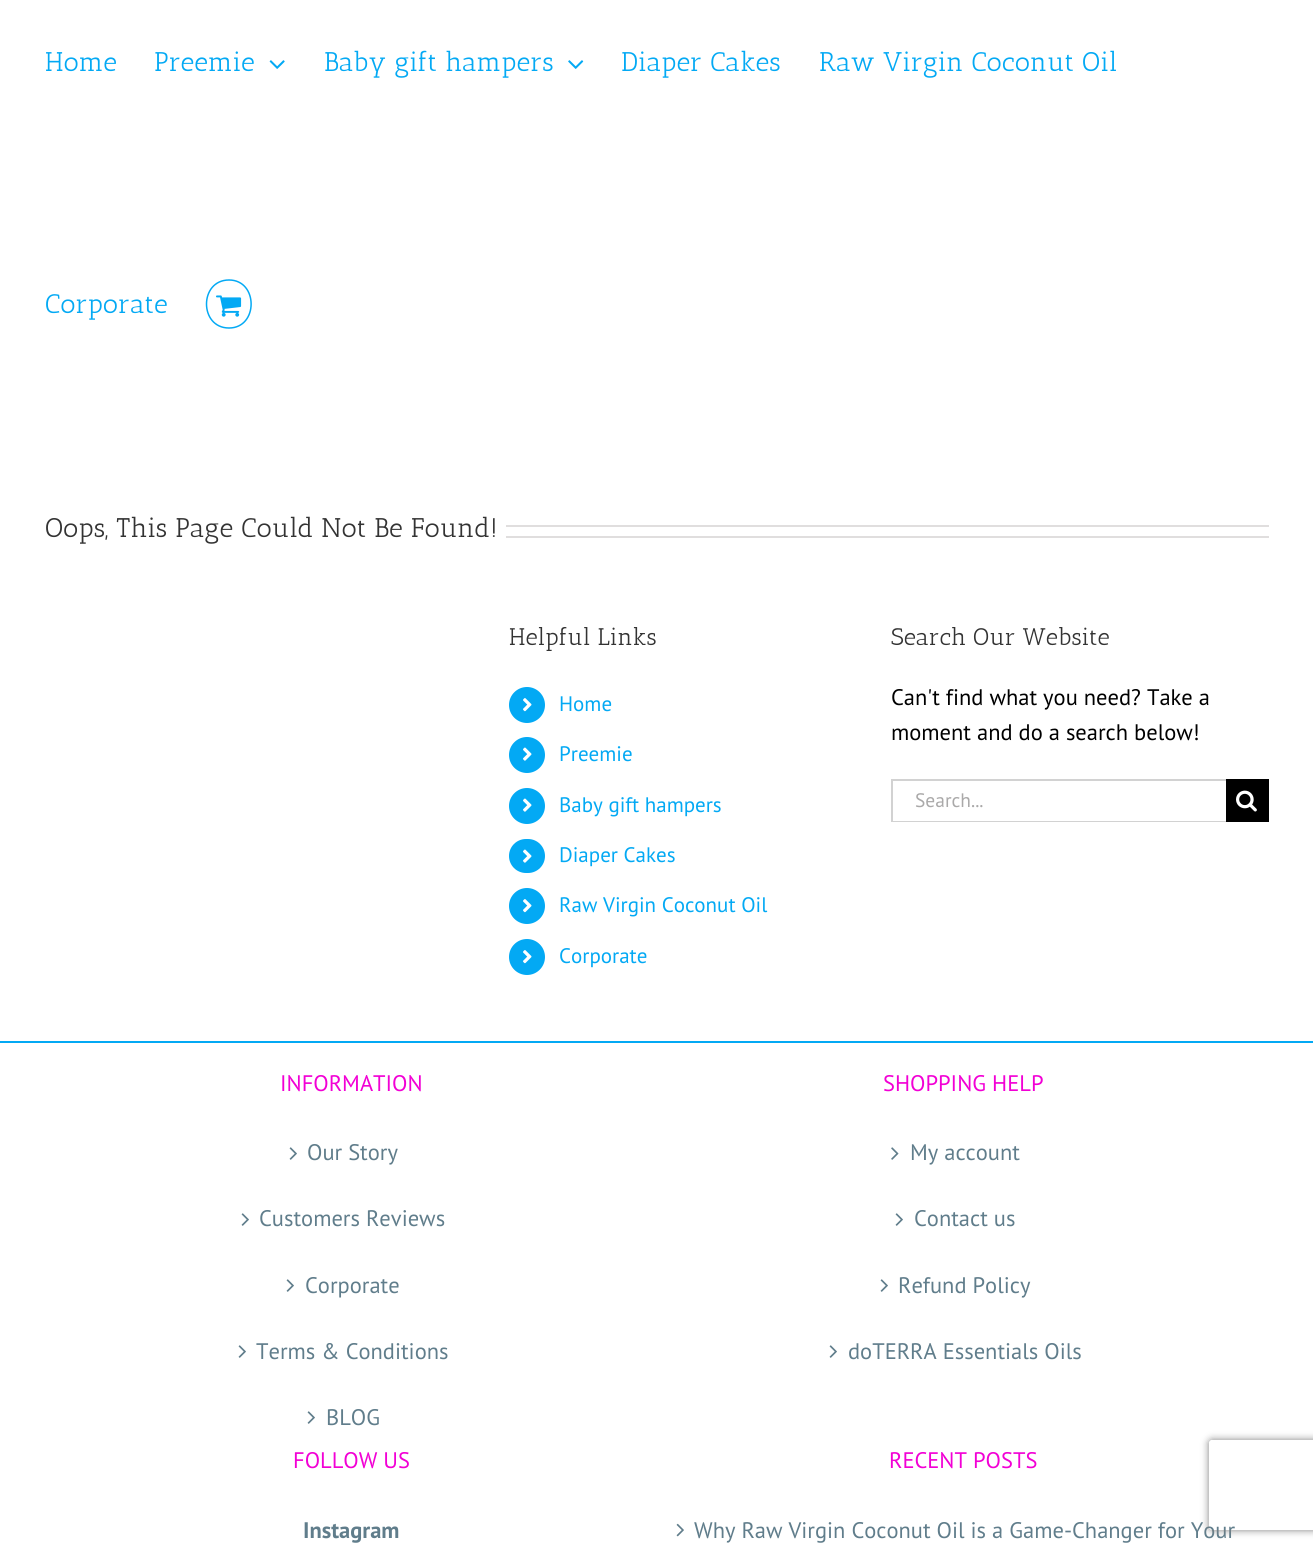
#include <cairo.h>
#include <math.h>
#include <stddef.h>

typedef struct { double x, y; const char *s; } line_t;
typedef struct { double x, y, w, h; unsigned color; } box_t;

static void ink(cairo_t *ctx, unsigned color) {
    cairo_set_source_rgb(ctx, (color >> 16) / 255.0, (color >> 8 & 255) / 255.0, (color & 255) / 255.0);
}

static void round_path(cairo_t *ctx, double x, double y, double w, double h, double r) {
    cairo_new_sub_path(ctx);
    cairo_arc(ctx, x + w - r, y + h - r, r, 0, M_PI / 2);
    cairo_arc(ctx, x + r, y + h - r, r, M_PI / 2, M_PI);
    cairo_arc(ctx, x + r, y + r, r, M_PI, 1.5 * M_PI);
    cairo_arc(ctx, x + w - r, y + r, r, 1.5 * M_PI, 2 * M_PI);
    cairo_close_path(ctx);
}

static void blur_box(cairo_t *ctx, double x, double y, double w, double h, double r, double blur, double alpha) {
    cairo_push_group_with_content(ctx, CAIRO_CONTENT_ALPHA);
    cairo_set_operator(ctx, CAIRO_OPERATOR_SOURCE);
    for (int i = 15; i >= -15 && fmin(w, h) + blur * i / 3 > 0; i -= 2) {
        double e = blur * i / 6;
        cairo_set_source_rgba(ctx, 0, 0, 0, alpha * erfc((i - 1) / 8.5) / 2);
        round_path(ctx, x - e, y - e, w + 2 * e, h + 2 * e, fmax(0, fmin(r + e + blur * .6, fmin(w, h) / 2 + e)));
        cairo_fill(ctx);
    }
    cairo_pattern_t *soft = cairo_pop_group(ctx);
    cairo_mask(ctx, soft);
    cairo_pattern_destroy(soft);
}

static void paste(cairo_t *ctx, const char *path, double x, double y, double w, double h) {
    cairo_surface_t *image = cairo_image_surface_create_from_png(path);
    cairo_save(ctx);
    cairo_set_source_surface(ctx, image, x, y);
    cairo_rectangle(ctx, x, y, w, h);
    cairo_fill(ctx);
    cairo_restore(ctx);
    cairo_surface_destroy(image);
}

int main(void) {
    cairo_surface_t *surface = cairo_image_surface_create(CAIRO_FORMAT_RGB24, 1313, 1551);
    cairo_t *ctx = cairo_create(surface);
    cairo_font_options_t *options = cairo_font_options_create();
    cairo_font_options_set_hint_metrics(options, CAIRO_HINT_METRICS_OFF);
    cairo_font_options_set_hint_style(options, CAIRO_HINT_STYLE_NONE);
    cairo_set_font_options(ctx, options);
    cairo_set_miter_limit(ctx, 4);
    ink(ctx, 0xFFFFFF);
    cairo_paint(ctx);
    cairo_select_font_face(ctx, "Antic Slab", CAIRO_FONT_SLANT_NORMAL, CAIRO_FONT_WEIGHT_NORMAL);
    cairo_set_font_size(ctx, 27);
    ink(ctx, 0x03A9F4);
    cairo_move_to(ctx, 45, 71);
    cairo_show_text(ctx, "Home");
    cairo_move_to(ctx, 154, 71);
    cairo_show_text(ctx, "Preemie");
    paste(ctx, "media/1.png", 269, 60, 16, 9);
    cairo_move_to(ctx, 324, 71);
    cairo_show_text(ctx, "Baby gift hampers");
    paste(ctx, "media/2.png", 568, 60, 16, 9);
    {
        static const line_t items[] = {
            {621, 71, "Diaper Cakes"},
            {819, 71, "Raw Virgin Coconut Oil"},
            {45, 313, "Corporate"},
        };
        for (size_t i = 0; i < sizeof items / sizeof *items; i++) {
            cairo_move_to(ctx, items[i].x, items[i].y);
            cairo_show_text(ctx, items[i].s);
        }
    }
    cairo_new_path(ctx);
    cairo_move_to(ctx, 229, 280);
    cairo_curve_to(ctx, 258.5, 280, 258.5, 328, 229, 328);
    cairo_curve_to(ctx, 199, 328, 199, 280, 229, 280);
    cairo_close_path(ctx);
    cairo_set_line_width(ctx, 1.5);
    cairo_stroke(ctx);
    paste(ctx, "media/3.png", 216, 295, 26, 22);
    ink(ctx, 0x333333);
    cairo_move_to(ctx, 45, 537);
    cairo_show_text(ctx, "Oops, This Page Could Not Be Found!");
    ink(ctx, 0xE0DEDE);
    cairo_rectangle(ctx, 506, 525, 763, 2);
    cairo_fill(ctx);
    cairo_rectangle(ctx, 506, 536, 763, 2);
    cairo_fill(ctx);
    cairo_set_font_size(ctx, 24);
    ink(ctx, 0x333333);
    cairo_move_to(ctx, 509, 645);
    cairo_show_text(ctx, "Helpful Links");
    ink(ctx, 0x03A9F4);
    cairo_new_path(ctx);
    cairo_arc(ctx, 527, 705, 18, 0, 2 * M_PI);
    cairo_fill(ctx);
    paste(ctx, "media/4.png", 523, 698, 9, 14);
    cairo_select_font_face(ctx, "PT Sans", CAIRO_FONT_SLANT_NORMAL, CAIRO_FONT_WEIGHT_NORMAL);
    cairo_set_font_size(ctx, 21);
    cairo_move_to(ctx, 559, 711);
    cairo_show_text(ctx, "Home");
    cairo_new_path(ctx);
    cairo_arc(ctx, 527, 755, 18, 0, 2 * M_PI);
    cairo_fill(ctx);
    paste(ctx, "media/5.png", 523, 747, 9, 14);
    cairo_move_to(ctx, 559, 761);
    cairo_show_text(ctx, "Preemie");
    cairo_new_path(ctx);
    cairo_arc(ctx, 527, 806, 18, 0, 2 * M_PI);
    cairo_fill(ctx);
    paste(ctx, "media/5.png", 523, 798, 9, 14);
    cairo_move_to(ctx, 559, 812);
    cairo_show_text(ctx, "Baby gift hampers");
    round_path(ctx, 509, 839, 36, 34, 17);
    cairo_fill(ctx);
    paste(ctx, "media/5.png", 523, 849, 9, 14);
    cairo_move_to(ctx, 559, 862);
    cairo_show_text(ctx, "Diaper Cakes");
    cairo_new_path(ctx);
    cairo_arc(ctx, 527, 906, 18, 0, 2 * M_PI);
    cairo_fill(ctx);
    paste(ctx, "media/4.png", 523, 899, 9, 14);
    cairo_move_to(ctx, 559, 912);
    cairo_show_text(ctx, "Raw Virgin Coconut Oil");
    cairo_new_path(ctx);
    cairo_arc(ctx, 527, 957, 18, 0, 2 * M_PI);
    cairo_fill(ctx);
    paste(ctx, "media/4.png", 523, 950, 9, 14);
    cairo_move_to(ctx, 559, 963);
    cairo_show_text(ctx, "Corporate");
    cairo_select_font_face(ctx, "Antic Slab", CAIRO_FONT_SLANT_NORMAL, CAIRO_FONT_WEIGHT_NORMAL);
    cairo_set_font_size(ctx, 24);
    ink(ctx, 0x333333);
    cairo_move_to(ctx, 891, 645);
    cairo_show_text(ctx, "Search Our Website");
    cairo_select_font_face(ctx, "PT Sans", CAIRO_FONT_SLANT_NORMAL, CAIRO_FONT_WEIGHT_NORMAL);
    cairo_set_font_size(ctx, 22.5);
    ink(ctx, 0x000000);
    cairo_move_to(ctx, 891, 705);
    cairo_show_text(ctx, "Can't find what you need? Take a");
    cairo_move_to(ctx, 891, 740);
    cairo_show_text(ctx, "moment and do a search below!");
    {
        static const box_t items[] = {
            {891, 779, 335, 2, 0xD2D2D2},
            {891, 821, 335, 1, 0xD2D2D2},
            {891, 779, 2, 43, 0xD2D2D2},
        };
        for (size_t i = 0; i < sizeof items / sizeof *items; i++) {
            ink(ctx, items[i].color);
            cairo_rectangle(ctx, items[i].x, items[i].y, items[i].w, items[i].h);
            cairo_fill(ctx);
        }
    }
    cairo_set_font_size(ctx, 19.5);
    ink(ctx, 0xAAA9A9);
    cairo_move_to(ctx, 915, 807);
    cairo_show_text(ctx, "Search...");
    ink(ctx, 0x000000);
    cairo_rectangle(ctx, 1226, 779, 43, 43);
    cairo_fill(ctx);
    paste(ctx, "media/6.png", 1236, 790, 21, 22);
    ink(ctx, 0x03A9F4);
    cairo_rectangle(ctx, 0, 1041, 1313, 2);
    cairo_fill(ctx);
    cairo_set_font_size(ctx, 22.5);
    ink(ctx, 0xF200D5);
    cairo_move_to(ctx, 280, 1091);
    cairo_show_text(ctx, "INFORMATION");
    paste(ctx, "media/7.png", 289, 1147, 8, 13);
    ink(ctx, 0x607D8B);
    cairo_move_to(ctx, 307, 1160);
    cairo_show_text(ctx, "Our Story");
    paste(ctx, "media/7.png", 241, 1213, 8, 13);
    cairo_move_to(ctx, 259, 1226);
    cairo_show_text(ctx, "Customers Reviews");
    paste(ctx, "media/7.png", 286, 1279, 8, 13);
    cairo_move_to(ctx, 305, 1293);
    cairo_show_text(ctx, "Corporate");
    paste(ctx, "media/7.png", 238, 1345, 8, 13);
    cairo_move_to(ctx, 256, 1359);
    cairo_show_text(ctx, "Terms & Conditions");
    paste(ctx, "media/7.png", 307, 1411, 8, 13);
    cairo_move_to(ctx, 326, 1425);
    cairo_show_text(ctx, "BLOG");
    ink(ctx, 0xF200D5);
    cairo_move_to(ctx, 883, 1091);
    cairo_show_text(ctx, "SHOPPING HELP");
    paste(ctx, "media/8.png", 891, 1147, 8, 13);
    ink(ctx, 0x607D8B);
    cairo_move_to(ctx, 910, 1160);
    cairo_show_text(ctx, "My account");
    paste(ctx, "media/7.png", 895, 1213, 8, 13);
    cairo_move_to(ctx, 914, 1226);
    cairo_show_text(ctx, "Contact us");
    paste(ctx, "media/7.png", 880, 1279, 8, 13);
    cairo_move_to(ctx, 898, 1293);
    cairo_show_text(ctx, "Refund Policy");
    paste(ctx, "media/7.png", 829, 1345, 8, 13);
    cairo_move_to(ctx, 848, 1359);
    cairo_show_text(ctx, "doTERRA Essentials Oils");
    ink(ctx, 0xF200D5);
    cairo_move_to(ctx, 293, 1468);
    cairo_show_text(ctx, "FOLLOW US");
    cairo_select_font_face(ctx, "PT Sans", CAIRO_FONT_SLANT_NORMAL, CAIRO_FONT_WEIGHT_BOLD);
    ink(ctx, 0x607D8B);
    cairo_move_to(ctx, 303, 1538);
    cairo_show_text(ctx, "Instagram");
    cairo_select_font_face(ctx, "PT Sans", CAIRO_FONT_SLANT_NORMAL, CAIRO_FONT_WEIGHT_NORMAL);
    ink(ctx, 0xF200D5);
    cairo_move_to(ctx, 889, 1468);
    cairo_show_text(ctx, "RECENT POSTS");
    paste(ctx, "media/9.png", 676, 1523, 8, 14);
    ink(ctx, 0x607D8B);
    cairo_move_to(ctx, 694, 1538);
    cairo_show_text(ctx, "Why Raw Virgin Coconut Oil is a Game-Changer for Your");
    cairo_save(ctx);
    cairo_set_fill_rule(ctx, CAIRO_FILL_RULE_EVEN_ODD);
    cairo_new_path(ctx);
    cairo_move_to(ctx, 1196, 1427);
    cairo_line_to(ctx, 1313, 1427);
    cairo_line_to(ctx, 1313, 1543);
    cairo_line_to(ctx, 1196, 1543);
    cairo_close_path(ctx);
    cairo_move_to(ctx, 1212, 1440);
    cairo_line_to(ctx, 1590, 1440);
    cairo_curve_to(ctx, 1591.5, 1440, 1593, 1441.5, 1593, 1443);
    cairo_line_to(ctx, 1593, 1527);
    cairo_curve_to(ctx, 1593, 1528.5, 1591.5, 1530, 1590, 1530);
    cairo_line_to(ctx, 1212, 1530);
    cairo_curve_to(ctx, 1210.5, 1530, 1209, 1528.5, 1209, 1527);
    cairo_line_to(ctx, 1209, 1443);
    cairo_curve_to(ctx, 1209, 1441.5, 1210.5, 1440, 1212, 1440);
    cairo_close_path(ctx);
    cairo_clip(ctx);
    ink(ctx, 0x808080);
    blur_box(ctx, 1209, 1440, 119, 90, 3, 4, 1);
    cairo_restore(ctx);
    cairo_surface_write_to_png(surface, "image.png");
    cairo_font_options_destroy(options);
    cairo_destroy(ctx);
    cairo_surface_destroy(surface);
    return 0;
}
